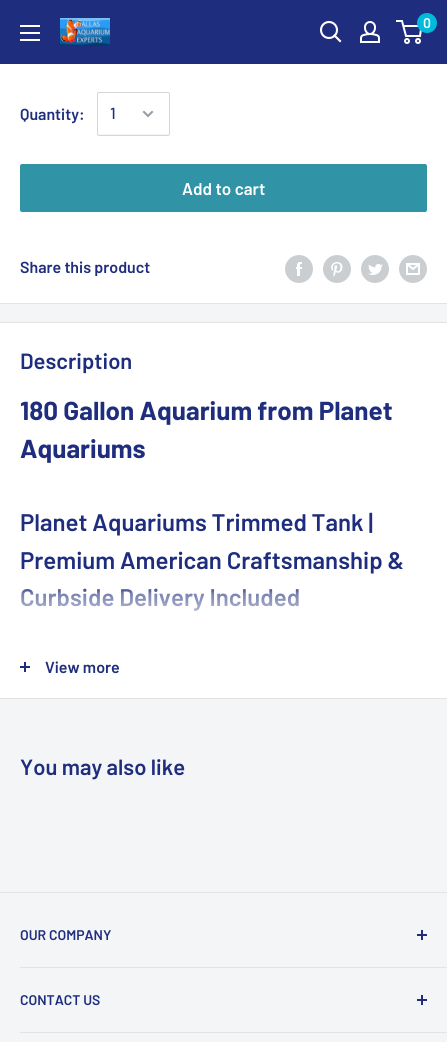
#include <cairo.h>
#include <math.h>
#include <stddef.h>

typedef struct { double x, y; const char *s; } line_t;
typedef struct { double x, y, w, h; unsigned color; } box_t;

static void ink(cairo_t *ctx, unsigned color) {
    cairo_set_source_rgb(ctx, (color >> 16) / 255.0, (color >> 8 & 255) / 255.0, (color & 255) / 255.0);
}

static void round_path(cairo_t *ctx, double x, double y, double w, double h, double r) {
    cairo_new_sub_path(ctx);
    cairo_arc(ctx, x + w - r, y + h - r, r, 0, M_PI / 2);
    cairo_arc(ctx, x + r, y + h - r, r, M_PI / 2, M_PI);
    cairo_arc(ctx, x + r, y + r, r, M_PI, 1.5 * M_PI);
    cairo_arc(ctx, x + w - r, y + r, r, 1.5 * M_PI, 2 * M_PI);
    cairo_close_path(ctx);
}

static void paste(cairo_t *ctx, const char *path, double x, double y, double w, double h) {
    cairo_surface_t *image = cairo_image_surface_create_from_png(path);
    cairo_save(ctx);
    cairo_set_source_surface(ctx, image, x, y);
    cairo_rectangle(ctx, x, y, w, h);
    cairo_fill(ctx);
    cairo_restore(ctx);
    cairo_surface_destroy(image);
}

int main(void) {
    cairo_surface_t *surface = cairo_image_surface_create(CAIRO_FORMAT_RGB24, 447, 1042);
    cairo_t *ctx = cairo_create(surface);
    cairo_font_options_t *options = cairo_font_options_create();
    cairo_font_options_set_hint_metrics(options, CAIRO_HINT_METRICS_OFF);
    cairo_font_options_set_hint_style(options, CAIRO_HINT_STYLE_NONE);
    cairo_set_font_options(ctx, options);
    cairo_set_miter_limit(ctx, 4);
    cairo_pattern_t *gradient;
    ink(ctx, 0xF3F5F6);
    cairo_paint(ctx);
    ink(ctx, 0x1E2D7D);
    cairo_rectangle(ctx, 0, 0, 447, 64);
    cairo_fill(ctx);
    paste(ctx, "media/1.png", 60, 18, 50, 28);
    cairo_new_path(ctx);
    cairo_move_to(ctx, 340, 41);
    cairo_line_to(ctx, 334.5, 35.5);
    ink(ctx, 0xFFFFFF);
    cairo_set_line_width(ctx, 2.1);
    cairo_set_line_cap(ctx, CAIRO_LINE_CAP_SQUARE);
    cairo_stroke(ctx);
    cairo_arc(ctx, 329, 30, 8, 0, 2 * M_PI);
    cairo_set_line_cap(ctx, CAIRO_LINE_CAP_BUTT);
    cairo_stroke(ctx);
    paste(ctx, "media/2.png", 360, 21, 20, 22);
    cairo_arc(ctx, 407, 41, 2, 0, 2 * M_PI);
    cairo_set_line_width(ctx, 2);
    cairo_stroke(ctx);
    cairo_arc(ctx, 418, 41, 2, 0, 2 * M_PI);
    cairo_stroke(ctx);
    cairo_new_path(ctx);
    cairo_move_to(ctx, 403.5, 26);
    cairo_line_to(ctx, 421.5, 26);
    cairo_line_to(ctx, 420, 36);
    cairo_line_to(ctx, 406, 36);
    cairo_line_to(ctx, 402, 21);
    cairo_line_to(ctx, 396, 21);
    cairo_stroke(ctx);
    ink(ctx, 0x00BADB);
    cairo_arc(ctx, 427, 23, 10, 0, 2 * M_PI);
    cairo_fill(ctx);
    cairo_select_font_face(ctx, "Barlow SemiBold", CAIRO_FONT_SLANT_NORMAL, CAIRO_FONT_WEIGHT_NORMAL);
    cairo_set_font_size(ctx, 14);
    ink(ctx, 0xFFFFFF);
    cairo_move_to(ctx, 423, 28);
    cairo_show_text(ctx, "0");
    paste(ctx, "media/3.png", 20, 25, 20, 16);
    cairo_rectangle(ctx, 0, 64, 447, 239);
    cairo_fill(ctx);
    ink(ctx, 0xE1E3E4);
    cairo_rectangle(ctx, 0, 303, 447, 1);
    cairo_fill(ctx);
    cairo_set_font_size(ctx, 16);
    ink(ctx, 0x1E2D7D);
    cairo_move_to(ctx, 20, 120);
    cairo_show_text(ctx, "Quantity:");
    ink(ctx, 0xF2F3F3);
    cairo_new_path(ctx);
    cairo_move_to(ctx, 98, 133);
    cairo_curve_to(ctx, 98, 134, 98, 135, 99, 135);
    cairo_line_to(ctx, 168, 135);
    cairo_line_to(ctx, 169, 133);
    cairo_line_to(ctx, 168, 134);
    cairo_line_to(ctx, 103, 134);
    cairo_curve_to(ctx, 102, 134, 99, 135, 98, 133);
    cairo_close_path(ctx);
    cairo_fill(ctx);
    round_path(ctx, 97.5, 92.5, 72, 43, 1.5);
    ink(ctx, 0xD4D6D8);
    cairo_set_line_width(ctx, 1);
    cairo_stroke(ctx);
    cairo_select_font_face(ctx, "Barlow Medium", CAIRO_FONT_SLANT_NORMAL, CAIRO_FONT_WEIGHT_NORMAL);
    ink(ctx, 0x1E2D7D);
    cairo_move_to(ctx, 110, 119);
    cairo_show_text(ctx, "1");
    cairo_new_path(ctx);
    cairo_move_to(ctx, 152, 112);
    cairo_line_to(ctx, 148, 116);
    cairo_line_to(ctx, 144, 112);
    ink(ctx, 0x959CA1);
    cairo_set_line_width(ctx, 2);
    cairo_set_line_cap(ctx, CAIRO_LINE_CAP_SQUARE);
    cairo_stroke(ctx);
    ink(ctx, 0x3094A6);
    round_path(ctx, 20, 164, 407, 48, 2);
    cairo_fill(ctx);
    cairo_select_font_face(ctx, "Barlow SemiBold", CAIRO_FONT_SLANT_NORMAL, CAIRO_FONT_WEIGHT_NORMAL);
    cairo_set_font_size(ctx, 17);
    ink(ctx, 0xFFFFFF);
    cairo_move_to(ctx, 182, 195);
    cairo_show_text(ctx, "Add to cart");
    cairo_set_font_size(ctx, 16);
    ink(ctx, 0x1E2D7D);
    cairo_move_to(ctx, 20, 273);
    cairo_show_text(ctx, "Share this product");
    paste(ctx, "media/4.png", 285, 255, 28, 28);
    paste(ctx, "media/5.png", 323, 255, 28, 28);
    paste(ctx, "media/6.png", 361, 255, 28, 28);
    paste(ctx, "media/7.png", 399, 255, 28, 28);
    {
        static const box_t items[] = {
            {0, 323, 447, 375, 0xFFFFFF},
            {0, 322, 447, 1, 0xE1E3E4},
            {0, 698, 447, 1, 0xE1E3E4},
        };
        for (size_t i = 0; i < sizeof items / sizeof *items; i++) {
            ink(ctx, items[i].color);
            cairo_rectangle(ctx, items[i].x, items[i].y, items[i].w, items[i].h);
            cairo_fill(ctx);
        }
    }
    cairo_set_font_size(ctx, 22);
    ink(ctx, 0x1E2D7D);
    cairo_move_to(ctx, 20, 369);
    cairo_show_text(ctx, "Description");
    cairo_select_font_face(ctx, "Barlow", CAIRO_FONT_SLANT_NORMAL, CAIRO_FONT_WEIGHT_BOLD);
    cairo_set_font_size(ctx, 26);
    cairo_move_to(ctx, 20, 420);
    cairo_show_text(ctx, "180 Gallon Aquarium from Planet");
    cairo_move_to(ctx, 20, 458);
    cairo_show_text(ctx, "Aquariums");
    cairo_select_font_face(ctx, "Barlow SemiBold", CAIRO_FONT_SLANT_NORMAL, CAIRO_FONT_WEIGHT_NORMAL);
    cairo_set_font_size(ctx, 24);
    {
        static const line_t items[] = {
            {20, 531, "Planet Aquariums Trimmed Tank |"},
            {20, 569, "Premium American Craftsmanship &"},
            {20, 606, "Curbside Delivery Included"},
        };
        for (size_t i = 0; i < sizeof items / sizeof *items; i++) {
            cairo_move_to(ctx, items[i].x, items[i].y);
            cairo_show_text(ctx, items[i].s);
        }
    }
    gradient = cairo_pattern_create_linear(224, 586, 224, 636);
    cairo_pattern_add_color_stop_rgba(gradient, 0, 1, 1, 1, 0);
    cairo_pattern_add_color_stop_rgba(gradient, 0.15, 1, 1, 1, 0.4);
    cairo_pattern_add_color_stop_rgba(gradient, 1, 1, 1, 1, 1);
    cairo_set_source(ctx, gradient);
    cairo_pattern_destroy(gradient);
    cairo_rectangle(ctx, 21, 588, 278, 23);
    cairo_fill(ctx);
    ink(ctx, 0x1E2D7D);
    cairo_rectangle(ctx, 24, 662, 2, 10);
    cairo_fill(ctx);
    cairo_rectangle(ctx, 20, 666, 10, 2);
    cairo_fill(ctx);
    cairo_set_font_size(ctx, 16);
    cairo_move_to(ctx, 45, 673);
    cairo_show_text(ctx, "View more");
    cairo_set_font_size(ctx, 22);
    cairo_move_to(ctx, 20, 775);
    cairo_show_text(ctx, "You may also like");
    ink(ctx, 0xE1E3E4);
    cairo_rectangle(ctx, 0, 892, 447, 1);
    cairo_fill(ctx);
    cairo_rectangle(ctx, 20, 967, 427, 1);
    cairo_fill(ctx);
    cairo_set_font_size(ctx, 14);
    ink(ctx, 0x1E2D7D);
    cairo_move_to(ctx, 20, 940);
    cairo_show_text(ctx, "OUR COMPANY");
    {
        static const box_t items[] = {
            {421, 930, 2, 10, 0x1E2D7D},
            {417, 934, 10, 2, 0x1E2D7D},
            {20, 1032, 427, 1, 0xE1E3E4},
        };
        for (size_t i = 0; i < sizeof items / sizeof *items; i++) {
            ink(ctx, items[i].color);
            cairo_rectangle(ctx, items[i].x, items[i].y, items[i].w, items[i].h);
            cairo_fill(ctx);
        }
    }
    ink(ctx, 0x1E2D7D);
    cairo_move_to(ctx, 20, 1005);
    cairo_show_text(ctx, "CONTACT US");
    cairo_rectangle(ctx, 421, 995, 2, 10);
    cairo_fill(ctx);
    cairo_rectangle(ctx, 417, 999, 10, 2);
    cairo_fill(ctx);
    cairo_surface_write_to_png(surface, "image.png");
    cairo_font_options_destroy(options);
    cairo_destroy(ctx);
    cairo_surface_destroy(surface);
    return 0;
}
